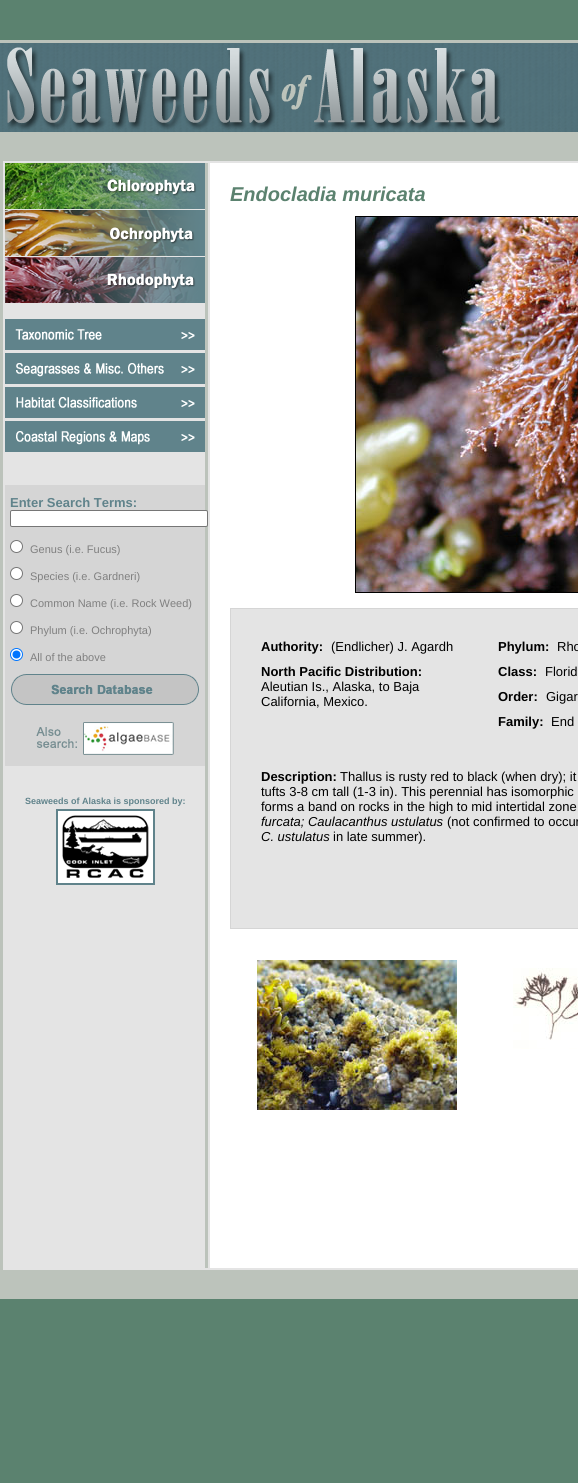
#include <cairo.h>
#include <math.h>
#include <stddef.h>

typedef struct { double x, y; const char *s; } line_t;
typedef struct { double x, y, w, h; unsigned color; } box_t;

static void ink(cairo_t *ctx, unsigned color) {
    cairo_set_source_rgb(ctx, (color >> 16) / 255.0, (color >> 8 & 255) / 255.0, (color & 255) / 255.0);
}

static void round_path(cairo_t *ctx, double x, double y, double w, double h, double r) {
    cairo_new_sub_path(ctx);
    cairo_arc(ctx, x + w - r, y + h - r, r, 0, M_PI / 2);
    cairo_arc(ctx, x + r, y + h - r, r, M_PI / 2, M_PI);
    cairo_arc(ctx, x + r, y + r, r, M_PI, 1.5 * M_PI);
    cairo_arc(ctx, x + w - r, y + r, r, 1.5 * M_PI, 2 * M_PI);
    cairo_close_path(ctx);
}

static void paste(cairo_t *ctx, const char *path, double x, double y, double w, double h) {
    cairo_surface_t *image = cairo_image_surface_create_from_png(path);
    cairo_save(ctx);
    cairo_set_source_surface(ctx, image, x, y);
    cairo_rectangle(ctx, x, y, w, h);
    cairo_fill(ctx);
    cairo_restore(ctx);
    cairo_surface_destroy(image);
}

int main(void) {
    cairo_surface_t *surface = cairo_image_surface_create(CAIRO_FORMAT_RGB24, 578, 1483);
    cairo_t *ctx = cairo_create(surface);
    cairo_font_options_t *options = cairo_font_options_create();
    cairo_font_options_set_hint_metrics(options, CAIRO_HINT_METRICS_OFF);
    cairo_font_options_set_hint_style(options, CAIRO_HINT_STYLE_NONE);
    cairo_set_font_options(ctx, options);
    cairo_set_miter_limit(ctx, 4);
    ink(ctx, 0x5B826F);
    cairo_paint(ctx);
    ink(ctx, 0xBCC3BB);
    cairo_rectangle(ctx, 0, 40, 578, 3);
    cairo_fill(ctx);
    paste(ctx, "media/1.png", 0, 43, 578, 89);
    paste(ctx, "media/2.png", 7, 47, 498, 83);
    {
        static const box_t items[] = {
            {0, 132, 578, 29, 0xBCC3BB},
            {3, 161, 575, 1109, 0xE4E4E4},
            {0, 161, 3, 1138, 0xBCC3BB},
            {205, 163, 3, 1105, 0xBCC3BB},
        };
        for (size_t i = 0; i < sizeof items / sizeof *items; i++) {
            ink(ctx, items[i].color);
            cairo_rectangle(ctx, items[i].x, items[i].y, items[i].w, items[i].h);
            cairo_fill(ctx);
        }
    }
    paste(ctx, "media/3.png", 5, 163, 200, 46);
    paste(ctx, "media/4.png", 5, 210, 200, 46);
    paste(ctx, "media/5.png", 5, 257, 200, 46);
    paste(ctx, "media/6.png", 5, 319, 200, 31);
    paste(ctx, "media/7.png", 5, 353, 200, 31);
    paste(ctx, "media/8.png", 5, 387, 200, 31);
    paste(ctx, "media/9.png", 5, 421, 200, 31);
    ink(ctx, 0xD5D5D5);
    cairo_rectangle(ctx, 5, 485, 200, 281);
    cairo_fill(ctx);
    cairo_select_font_face(ctx, "Liberation Sans", CAIRO_FONT_SLANT_NORMAL, CAIRO_FONT_WEIGHT_BOLD);
    cairo_set_font_size(ctx, 13);
    ink(ctx, 0x60838B);
    cairo_move_to(ctx, 10, 507);
    cairo_show_text(ctx, "Enter Search Terms:");
    ink(ctx, 0xFFFFFF);
    round_path(ctx, 10.5, 510.5, 197, 16, 1.5);
    cairo_fill_preserve(ctx);
    ink(ctx, 0x767676);
    cairo_set_line_width(ctx, 1);
    cairo_stroke(ctx);
    ink(ctx, 0xFFFFFF);
    cairo_arc(ctx, 16.5, 546.5, 6, 0, 2 * M_PI);
    cairo_fill_preserve(ctx);
    ink(ctx, 0x767676);
    cairo_stroke(ctx);
    cairo_select_font_face(ctx, "Liberation Sans", CAIRO_FONT_SLANT_NORMAL, CAIRO_FONT_WEIGHT_NORMAL);
    cairo_set_font_size(ctx, 11);
    ink(ctx, 0x808080);
    cairo_move_to(ctx, 30, 553);
    cairo_show_text(ctx, "Genus (i.e. Fucus)");
    ink(ctx, 0xFFFFFF);
    cairo_new_path(ctx);
    cairo_arc(ctx, 16.5, 573.5, 6, 0, 2 * M_PI);
    cairo_fill_preserve(ctx);
    ink(ctx, 0x767676);
    cairo_stroke(ctx);
    ink(ctx, 0x808080);
    cairo_move_to(ctx, 30, 580);
    cairo_show_text(ctx, "Species (i.e. Gardneri)");
    ink(ctx, 0xFFFFFF);
    cairo_new_path(ctx);
    cairo_arc(ctx, 16.5, 600.5, 6, 0, 2 * M_PI);
    cairo_fill_preserve(ctx);
    ink(ctx, 0x767676);
    cairo_stroke(ctx);
    ink(ctx, 0x808080);
    cairo_move_to(ctx, 30, 607);
    cairo_show_text(ctx, "Common Name (i.e. Rock Weed)");
    ink(ctx, 0xFFFFFF);
    cairo_new_path(ctx);
    cairo_arc(ctx, 16.5, 627.5, 6, 0, 2 * M_PI);
    cairo_fill_preserve(ctx);
    ink(ctx, 0x767676);
    cairo_stroke(ctx);
    ink(ctx, 0x808080);
    cairo_move_to(ctx, 30, 634);
    cairo_show_text(ctx, "Phylum (i.e. Ochrophyta)");
    ink(ctx, 0xFFFFFF);
    cairo_new_path(ctx);
    cairo_arc(ctx, 16.5, 654.5, 6, 0, 2 * M_PI);
    cairo_fill_preserve(ctx);
    ink(ctx, 0x0075FF);
    cairo_stroke(ctx);
    cairo_arc(ctx, 16.5, 654.5, 4, 0, 2 * M_PI);
    cairo_fill(ctx);
    ink(ctx, 0x808080);
    cairo_move_to(ctx, 30, 661);
    cairo_show_text(ctx, "All of the above");
    paste(ctx, "media/10.png", 11, 674, 188, 31);
    paste(ctx, "media/11.png", 36, 722, 138, 33);
    cairo_select_font_face(ctx, "Liberation Sans", CAIRO_FONT_SLANT_NORMAL, CAIRO_FONT_WEIGHT_BOLD);
    cairo_set_font_size(ctx, 9);
    ink(ctx, 0x60838B);
    cairo_move_to(ctx, 25, 804);
    cairo_show_text(ctx, "Seaweeds of Alaska is sponsored by:");
    cairo_rectangle(ctx, 57, 810, 97, 74);
    cairo_set_line_width(ctx, 2);
    cairo_stroke(ctx);
    paste(ctx, "media/12.png", 58, 811, 95, 72);
    ink(ctx, 0xFFFFFF);
    cairo_rectangle(ctx, 210, 163, 368, 1105);
    cairo_fill(ctx);
    cairo_select_font_face(ctx, "Liberation Sans", CAIRO_FONT_SLANT_ITALIC, CAIRO_FONT_WEIGHT_BOLD);
    cairo_set_font_size(ctx, 20);
    ink(ctx, 0x5B826F);
    cairo_move_to(ctx, 230, 201);
    cairo_show_text(ctx, "Endocladia muricata");
    cairo_rectangle(ctx, 355.5, 216.5, 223, 376);
    ink(ctx, 0x000000);
    cairo_set_line_width(ctx, 1);
    cairo_stroke(ctx);
    paste(ctx, "media/13.png", 356, 217, 222, 375);
    ink(ctx, 0xE4E4E4);
    cairo_rectangle(ctx, 230.5, 608.5, 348, 320);
    cairo_fill_preserve(ctx);
    ink(ctx, 0xD5D5D5);
    cairo_stroke(ctx);
    cairo_select_font_face(ctx, "Liberation Sans", CAIRO_FONT_SLANT_NORMAL, CAIRO_FONT_WEIGHT_BOLD);
    cairo_set_font_size(ctx, 13);
    ink(ctx, 0x000000);
    cairo_move_to(ctx, 261, 651);
    cairo_show_text(ctx, "Authority:");
    cairo_select_font_face(ctx, "Liberation Sans", CAIRO_FONT_SLANT_NORMAL, CAIRO_FONT_WEIGHT_NORMAL);
    cairo_move_to(ctx, 331, 651);
    cairo_show_text(ctx, "(Endlicher) J. Agardh");
    cairo_select_font_face(ctx, "Liberation Sans", CAIRO_FONT_SLANT_NORMAL, CAIRO_FONT_WEIGHT_BOLD);
    cairo_move_to(ctx, 261, 676);
    cairo_show_text(ctx, "North Pacific Distribution:");
    cairo_select_font_face(ctx, "Liberation Sans", CAIRO_FONT_SLANT_NORMAL, CAIRO_FONT_WEIGHT_NORMAL);
    cairo_move_to(ctx, 261, 691);
    cairo_show_text(ctx, "Aleutian Is., Alaska, to Baja");
    cairo_move_to(ctx, 261, 706);
    cairo_show_text(ctx, "California, Mexico.");
    cairo_select_font_face(ctx, "Liberation Sans", CAIRO_FONT_SLANT_NORMAL, CAIRO_FONT_WEIGHT_BOLD);
    cairo_move_to(ctx, 498, 651);
    cairo_show_text(ctx, "Phylum:");
    cairo_select_font_face(ctx, "Liberation Sans", CAIRO_FONT_SLANT_NORMAL, CAIRO_FONT_WEIGHT_NORMAL);
    cairo_move_to(ctx, 557, 651);
    cairo_show_text(ctx, "Rho");
    cairo_select_font_face(ctx, "Liberation Sans", CAIRO_FONT_SLANT_NORMAL, CAIRO_FONT_WEIGHT_BOLD);
    cairo_move_to(ctx, 498, 676);
    cairo_show_text(ctx, "Class:");
    cairo_select_font_face(ctx, "Liberation Sans", CAIRO_FONT_SLANT_NORMAL, CAIRO_FONT_WEIGHT_NORMAL);
    cairo_move_to(ctx, 545, 676);
    cairo_show_text(ctx, "Florid");
    cairo_select_font_face(ctx, "Liberation Sans", CAIRO_FONT_SLANT_NORMAL, CAIRO_FONT_WEIGHT_BOLD);
    cairo_move_to(ctx, 498, 701);
    cairo_show_text(ctx, "Order:");
    cairo_select_font_face(ctx, "Liberation Sans", CAIRO_FONT_SLANT_NORMAL, CAIRO_FONT_WEIGHT_NORMAL);
    cairo_move_to(ctx, 546, 701);
    cairo_show_text(ctx, "Gigar");
    cairo_select_font_face(ctx, "Liberation Sans", CAIRO_FONT_SLANT_NORMAL, CAIRO_FONT_WEIGHT_BOLD);
    cairo_move_to(ctx, 498, 726);
    cairo_show_text(ctx, "Family:");
    cairo_select_font_face(ctx, "Liberation Sans", CAIRO_FONT_SLANT_NORMAL, CAIRO_FONT_WEIGHT_NORMAL);
    cairo_move_to(ctx, 551, 726);
    cairo_show_text(ctx, "End");
    cairo_select_font_face(ctx, "Liberation Sans", CAIRO_FONT_SLANT_NORMAL, CAIRO_FONT_WEIGHT_BOLD);
    cairo_move_to(ctx, 261, 781);
    cairo_show_text(ctx, "Description:");
    cairo_select_font_face(ctx, "Liberation Sans", CAIRO_FONT_SLANT_NORMAL, CAIRO_FONT_WEIGHT_NORMAL);
    {
        static const line_t items[] = {
            {340, 781, "Thallus is rusty red to black (when dry); it"},
            {261, 796, "tufts 3-8 cm tall (1-3 in). This perennial has isomorphic"},
            {261, 811, "forms a band on rocks in the high to mid intertidal zone"},
        };
        for (size_t i = 0; i < sizeof items / sizeof *items; i++) {
            cairo_move_to(ctx, items[i].x, items[i].y);
            cairo_show_text(ctx, items[i].s);
        }
    }
    cairo_select_font_face(ctx, "Liberation Sans", CAIRO_FONT_SLANT_ITALIC, CAIRO_FONT_WEIGHT_NORMAL);
    cairo_move_to(ctx, 261, 826);
    cairo_show_text(ctx, "furcata; Caulacanthus ustulatus");
    cairo_select_font_face(ctx, "Liberation Sans", CAIRO_FONT_SLANT_NORMAL, CAIRO_FONT_WEIGHT_NORMAL);
    cairo_move_to(ctx, 447, 826);
    cairo_show_text(ctx, "(not confirmed to occur");
    cairo_select_font_face(ctx, "Liberation Sans", CAIRO_FONT_SLANT_ITALIC, CAIRO_FONT_WEIGHT_NORMAL);
    cairo_move_to(ctx, 261, 841);
    cairo_show_text(ctx, "C. ustulatus");
    cairo_select_font_face(ctx, "Liberation Sans", CAIRO_FONT_SLANT_NORMAL, CAIRO_FONT_WEIGHT_NORMAL);
    cairo_move_to(ctx, 333, 841);
    cairo_show_text(ctx, "in late summer).");
    paste(ctx, "media/14.png", 257, 960, 200, 150);
    paste(ctx, "media/15.png", 513, 968, 65, 81);
    ink(ctx, 0xBCC3BB);
    cairo_rectangle(ctx, 3, 1270, 575, 29);
    cairo_fill(ctx);
    cairo_surface_write_to_png(surface, "image.png");
    cairo_font_options_destroy(options);
    cairo_destroy(ctx);
    cairo_surface_destroy(surface);
    return 0;
}
